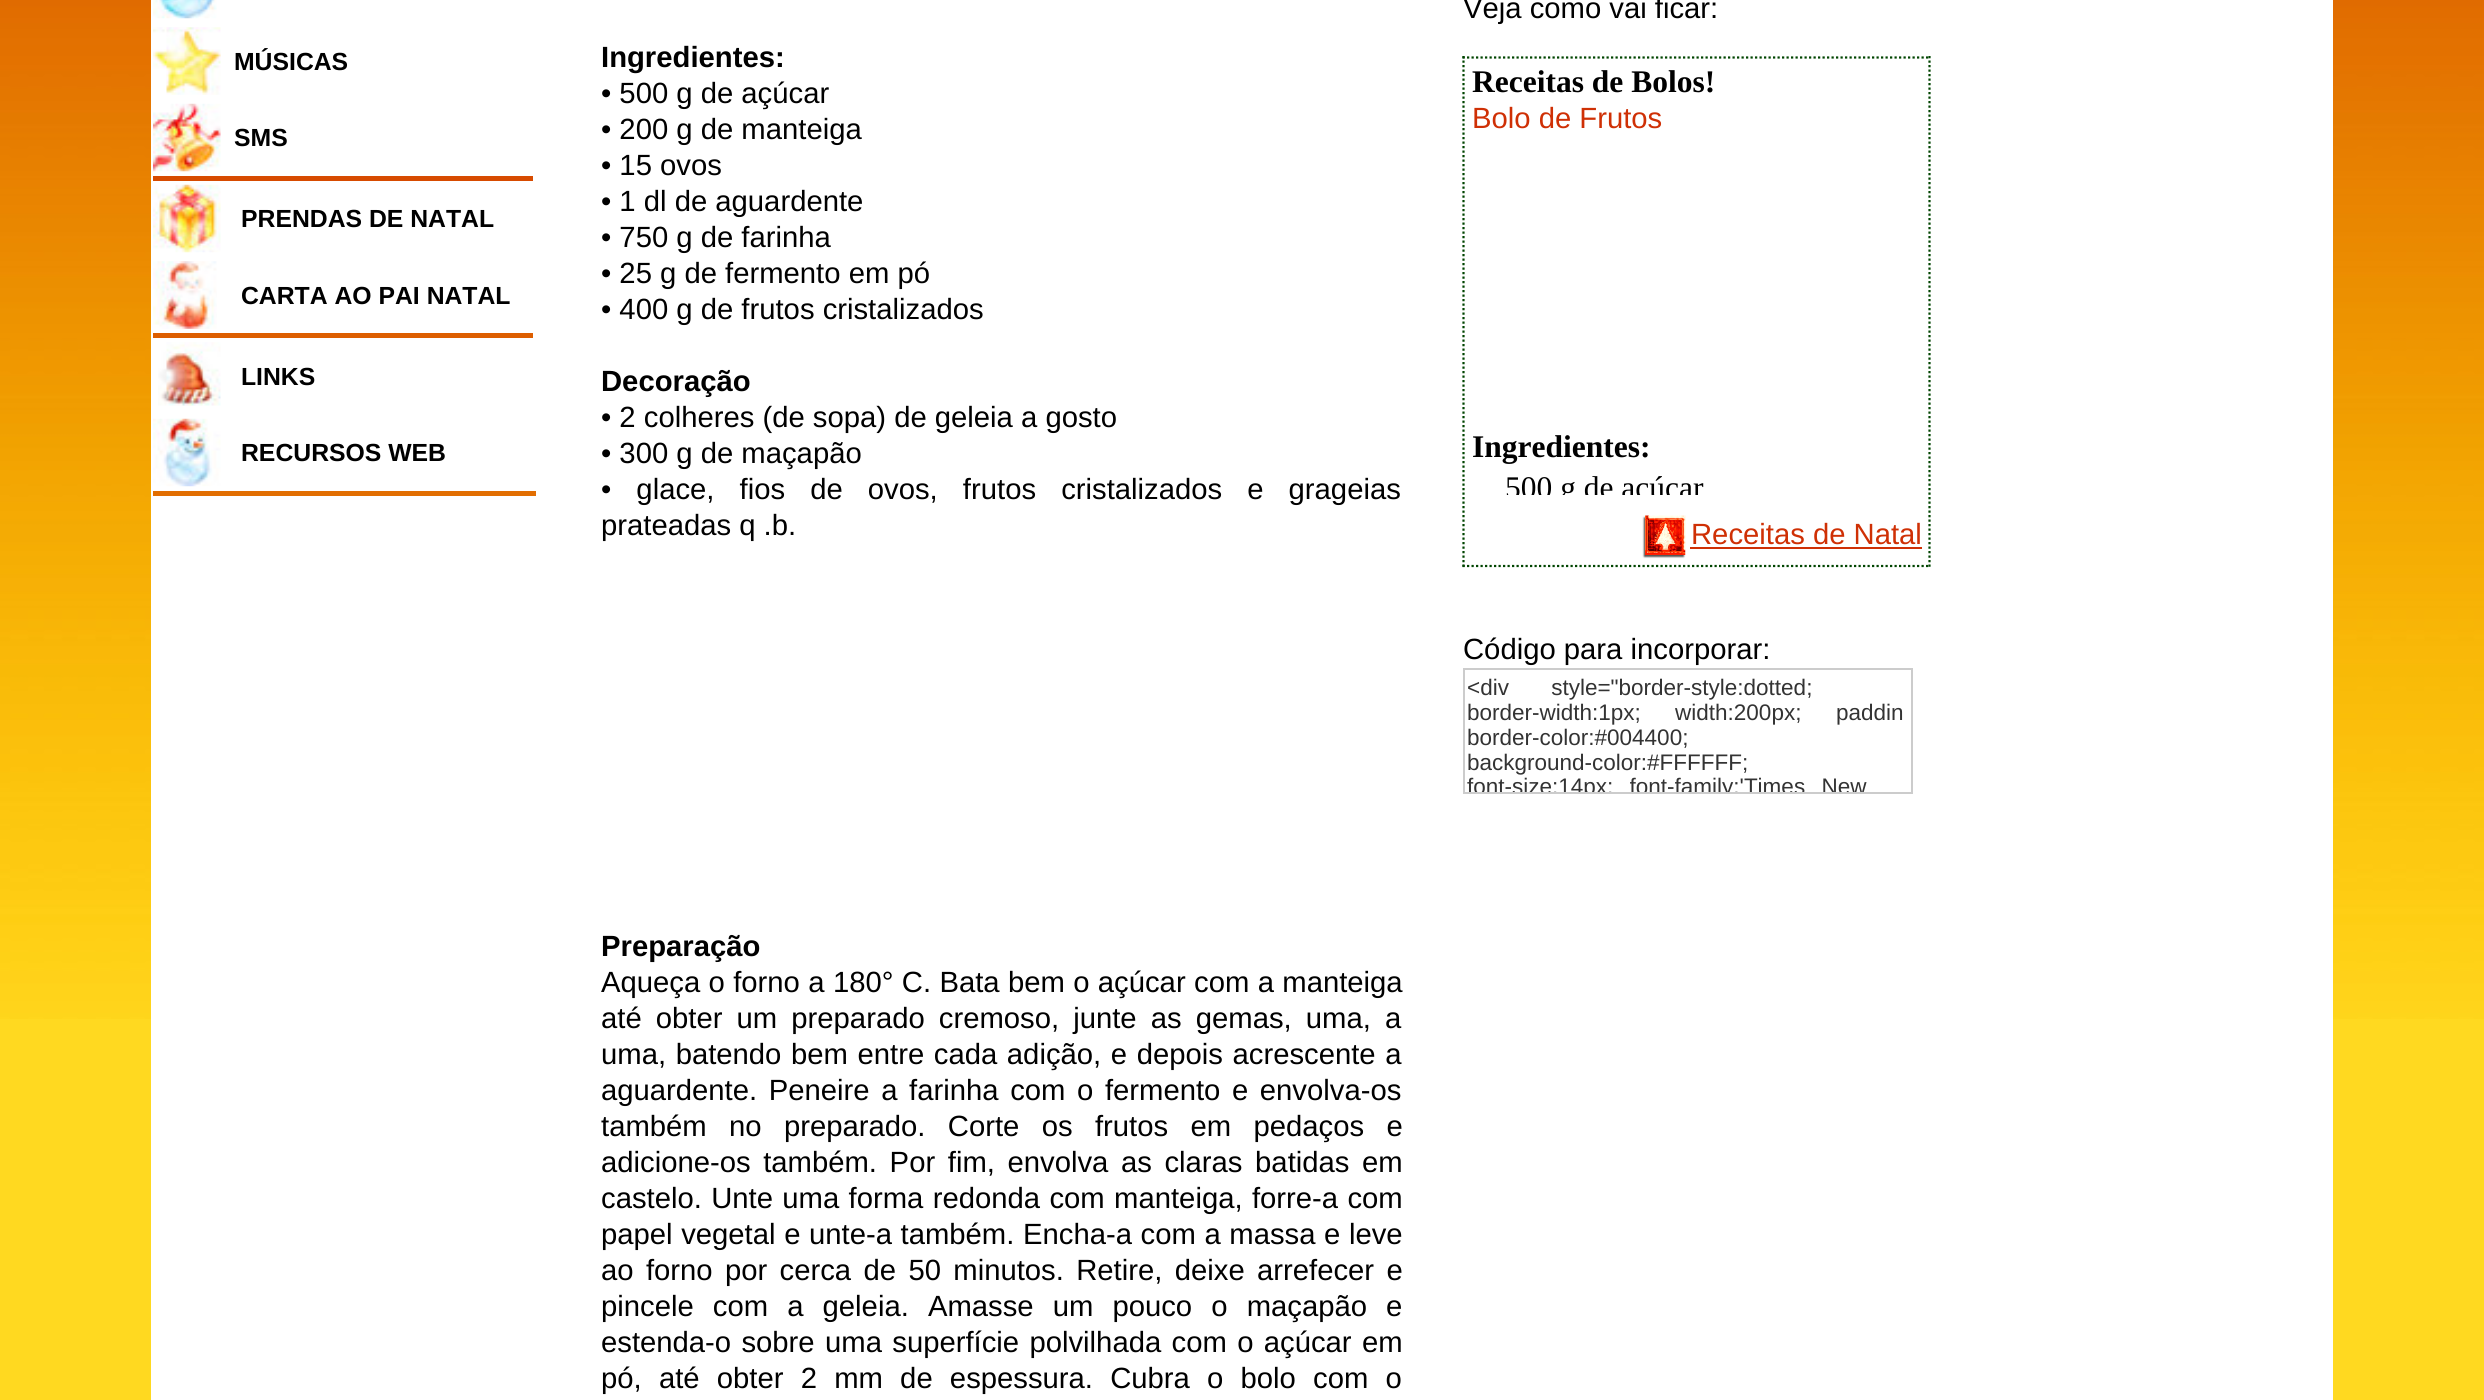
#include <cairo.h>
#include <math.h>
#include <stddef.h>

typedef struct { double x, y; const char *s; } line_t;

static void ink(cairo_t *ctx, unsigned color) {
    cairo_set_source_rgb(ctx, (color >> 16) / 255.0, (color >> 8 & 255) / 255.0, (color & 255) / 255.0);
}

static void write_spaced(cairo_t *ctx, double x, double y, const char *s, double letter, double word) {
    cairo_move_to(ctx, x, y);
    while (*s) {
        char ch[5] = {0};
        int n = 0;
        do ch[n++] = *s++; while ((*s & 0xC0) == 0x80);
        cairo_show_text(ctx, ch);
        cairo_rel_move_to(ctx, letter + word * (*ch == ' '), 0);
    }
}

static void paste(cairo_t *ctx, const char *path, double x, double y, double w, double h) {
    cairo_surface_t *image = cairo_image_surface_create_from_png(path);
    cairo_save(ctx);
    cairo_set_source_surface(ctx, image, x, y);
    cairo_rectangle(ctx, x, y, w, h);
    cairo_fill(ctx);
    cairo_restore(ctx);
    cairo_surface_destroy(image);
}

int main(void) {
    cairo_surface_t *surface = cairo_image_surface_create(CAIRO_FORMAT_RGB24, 2484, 1400);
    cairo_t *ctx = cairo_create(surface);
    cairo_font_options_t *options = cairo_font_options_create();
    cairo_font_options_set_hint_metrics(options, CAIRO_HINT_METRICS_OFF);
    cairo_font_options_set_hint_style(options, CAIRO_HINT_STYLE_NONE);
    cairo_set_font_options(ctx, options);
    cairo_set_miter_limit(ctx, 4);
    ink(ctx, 0xFFD920);
    cairo_paint(ctx);
    paste(ctx, "media/1.png", 0, 0, 2484, 1019);
    ink(ctx, 0xFFFFFF);
    cairo_rectangle(ctx, 151, 0, 2182, 1400);
    cairo_fill(ctx);
    paste(ctx, "media/2.png", 153, 0, 64, 19);
    paste(ctx, "media/3.png", 153, 27, 68, 68);
    cairo_select_font_face(ctx, "Liberation Sans", CAIRO_FONT_SLANT_NORMAL, CAIRO_FONT_WEIGHT_BOLD);
    cairo_set_font_size(ctx, 24.75);
    ink(ctx, 0x000000);
    cairo_move_to(ctx, 234, 70);
    cairo_show_text(ctx, "MÚSICAS");
    paste(ctx, "media/4.png", 153, 103, 68, 69);
    cairo_move_to(ctx, 234, 146);
    cairo_show_text(ctx, "SMS");
    ink(ctx, 0xD74B00);
    cairo_rectangle(ctx, 153, 176, 380, 5);
    cairo_fill(ctx);
    paste(ctx, "media/5.png", 153, 184, 68, 69);
    ink(ctx, 0x000000);
    cairo_move_to(ctx, 241, 227);
    cairo_show_text(ctx, "PRENDAS DE NATAL");
    paste(ctx, "media/6.png", 153, 261, 64, 68);
    cairo_move_to(ctx, 241, 304);
    cairo_show_text(ctx, "CARTA AO PAI NATAL");
    ink(ctx, 0xDD5E00);
    cairo_rectangle(ctx, 153, 333, 380, 5);
    cairo_fill(ctx);
    paste(ctx, "media/7.png", 158, 342, 63, 64);
    ink(ctx, 0x000000);
    cairo_move_to(ctx, 241, 385);
    cairo_show_text(ctx, "LINKS");
    paste(ctx, "media/8.png", 153, 418, 68, 69);
    cairo_move_to(ctx, 241, 461);
    cairo_show_text(ctx, "RECURSOS WEB");
    ink(ctx, 0xE26E01);
    cairo_rectangle(ctx, 153, 491, 383, 5);
    cairo_fill(ctx);
    cairo_set_font_size(ctx, 29.25);
    ink(ctx, 0x000000);
    cairo_move_to(ctx, 601, 67);
    cairo_show_text(ctx, "Ingredientes:");
    cairo_select_font_face(ctx, "Liberation Sans", CAIRO_FONT_SLANT_NORMAL, CAIRO_FONT_WEIGHT_NORMAL);
    {
        static const line_t items[] = {
            {601, 103, "• 500 g de açúcar"},
            {601, 139, "• 200 g de manteiga"},
            {601, 175, "• 15 ovos"},
            {601, 211, "• 1 dl de aguardente"},
            {601, 247, "• 750 g de farinha"},
            {601, 283, "• 25 g de fermento em pó"},
            {601, 319, "• 400 g de frutos cristalizados"},
        };
        for (size_t i = 0; i < sizeof items / sizeof *items; i++) {
            cairo_move_to(ctx, items[i].x, items[i].y);
            cairo_show_text(ctx, items[i].s);
        }
    }
    cairo_select_font_face(ctx, "Liberation Sans", CAIRO_FONT_SLANT_NORMAL, CAIRO_FONT_WEIGHT_BOLD);
    cairo_move_to(ctx, 601, 391);
    cairo_show_text(ctx, "Decoração");
    cairo_select_font_face(ctx, "Liberation Sans", CAIRO_FONT_SLANT_NORMAL, CAIRO_FONT_WEIGHT_NORMAL);
    cairo_move_to(ctx, 601, 427);
    cairo_show_text(ctx, "• 2 colheres (de sopa) de geleia a gosto");
    cairo_move_to(ctx, 601, 463);
    cairo_show_text(ctx, "• 300 g de maçapão");
    write_spaced(ctx, 601, 499, "• glace, fios de ovos, frutos cristalizados e grageias", 0, 17);
    cairo_move_to(ctx, 601, 535);
    cairo_show_text(ctx, "prateadas q .b.");
    cairo_select_font_face(ctx, "Liberation Sans", CAIRO_FONT_SLANT_NORMAL, CAIRO_FONT_WEIGHT_BOLD);
    cairo_move_to(ctx, 601, 956);
    cairo_show_text(ctx, "Preparação");
    cairo_select_font_face(ctx, "Liberation Sans", CAIRO_FONT_SLANT_NORMAL, CAIRO_FONT_WEIGHT_NORMAL);
    write_spaced(ctx, 601, 992, "Aqueça o forno a 180° C. Bata bem o açúcar com a manteiga", 0, 0.25);
    write_spaced(ctx, 601, 1028, "até obter um preparado cremoso, junte as gemas, uma, a", 0, 6);
    write_spaced(ctx, 601, 1064, "uma, batendo bem entre cada adição, e depois acrescente a", 0, 1.5);
    write_spaced(ctx, 601, 1100, "aguardente. Peneire a farinha com o fermento e envolva-os", 0, 3.5);
    write_spaced(ctx, 601, 1136, "também no preparado. Corte os frutos em pedaços e", 0, 14.25);
    write_spaced(ctx, 601, 1172, "adicione-os também. Por fim, envolva as claras batidas em", 0, 4.5);
    write_spaced(ctx, 601, 1208, "castelo. Unte uma forma redonda com manteiga, forre-a com", 0, 1.25);
    write_spaced(ctx, 601, 1244, "papel vegetal e unte-a também. Encha-a com a massa e leve", 0, 0.5);
    write_spaced(ctx, 601, 1280, "ao forno por cerca de 50 minutos. Retire, deixe arrefecer e", 0, 4.25);
    write_spaced(ctx, 601, 1316, "pincele com a geleia. Amasse um pouco o maçapão e", 0, 11);
    write_spaced(ctx, 601, 1352, "estenda-o sobre uma superfície polvilhada com o açúcar em", 0, 2.25);
    write_spaced(ctx, 601, 1388, "pó, até obter 2 mm de espessura. Cubra o bolo com o", 0, 9.1);
    cairo_move_to(ctx, 1463, 18);
    cairo_show_text(ctx, "Veja como vai ficar:");
    cairo_new_path(ctx);
    cairo_move_to(ctx, 1462.5, 57.5);
    cairo_line_to(ctx, 1930.5, 57.5);
    ink(ctx, 0x004400);
    cairo_set_line_width(ctx, 2.2);
    cairo_set_dash(ctx, (double[]){2.25, 2.25}, 2, 0);
    cairo_stroke(ctx);
    cairo_new_path(ctx);
    cairo_move_to(ctx, 1929.5, 56);
    cairo_line_to(ctx, 1929.5, 567);
    cairo_stroke(ctx);
    cairo_new_path(ctx);
    cairo_move_to(ctx, 1462.5, 566);
    cairo_line_to(ctx, 1930.5, 566);
    cairo_stroke(ctx);
    cairo_new_path(ctx);
    cairo_move_to(ctx, 1463.5, 56);
    cairo_line_to(ctx, 1463.5, 567);
    cairo_stroke(ctx);
    cairo_select_font_face(ctx, "Liberation Serif", CAIRO_FONT_SLANT_NORMAL, CAIRO_FONT_WEIGHT_BOLD);
    cairo_set_font_size(ctx, 31.5);
    ink(ctx, 0x000000);
    cairo_move_to(ctx, 1472, 92);
    cairo_show_text(ctx, "Receitas de Bolos!");
    cairo_select_font_face(ctx, "Liberation Sans", CAIRO_FONT_SLANT_NORMAL, CAIRO_FONT_WEIGHT_NORMAL);
    cairo_set_font_size(ctx, 29.25);
    ink(ctx, 0xCF3005);
    cairo_move_to(ctx, 1472, 128);
    cairo_show_text(ctx, "Bolo de Frutos");
    cairo_select_font_face(ctx, "Liberation Serif", CAIRO_FONT_SLANT_NORMAL, CAIRO_FONT_WEIGHT_BOLD);
    cairo_set_font_size(ctx, 31.5);
    ink(ctx, 0x000000);
    cairo_move_to(ctx, 1472, 457);
    cairo_show_text(ctx, "Ingredientes:");
    cairo_save(ctx);
    cairo_rectangle(ctx, 1472, 158, 436, 337);
    cairo_clip(ctx);
    cairo_select_font_face(ctx, "Liberation Serif", CAIRO_FONT_SLANT_NORMAL, CAIRO_FONT_WEIGHT_NORMAL);
    cairo_move_to(ctx, 1505, 498);
    cairo_show_text(ctx, "500 g de açúcar");
    cairo_restore(ctx);
    paste(ctx, "media/9.png", 1642, 515, 44, 44);
    cairo_select_font_face(ctx, "Liberation Sans", CAIRO_FONT_SLANT_NORMAL, CAIRO_FONT_WEIGHT_NORMAL);
    cairo_set_font_size(ctx, 29.25);
    ink(ctx, 0xCF3005);
    cairo_move_to(ctx, 1691, 544);
    cairo_show_text(ctx, "Receitas de Natal");
    cairo_rectangle(ctx, 1690, 547, 232, 2);
    cairo_fill(ctx);
    ink(ctx, 0x000000);
    cairo_move_to(ctx, 1463, 659);
    cairo_show_text(ctx, "Código para incorporar:");
    cairo_rectangle(ctx, 1464, 669, 448, 124);
    ink(ctx, 0xCCCCCC);
    cairo_set_line_width(ctx, 2);
    cairo_set_dash(ctx, NULL, 0, 0);
    cairo_stroke(ctx);
    cairo_set_font_size(ctx, 22.5);
    ink(ctx, 0x333333);
    write_spaced(ctx, 1467, 695, "<div style=\"border-style:dotted;", 0, 36);
    write_spaced(ctx, 1467, 720, "border-width:1px; width:200px;", 0, 28);
    {
        static const line_t items[] = {
            {1836, 720, "paddin"},
            {1467, 745, "border-color:#004400;"},
            {1467, 770, "background-color:#FFFFFF;"},
        };
        for (size_t i = 0; i < sizeof items / sizeof *items; i++) {
            cairo_move_to(ctx, items[i].x, items[i].y);
            cairo_show_text(ctx, items[i].s);
        }
    }
    cairo_save(ctx);
    cairo_rectangle(ctx, 1465, 671, 445, 121);
    cairo_clip(ctx);
    write_spaced(ctx, 1467, 794, "font-size:14px; font-family:'Times New", 0, 10);
    cairo_restore(ctx);
    cairo_surface_write_to_png(surface, "image.png");
    cairo_font_options_destroy(options);
    cairo_destroy(ctx);
    cairo_surface_destroy(surface);
    return 0;
}
